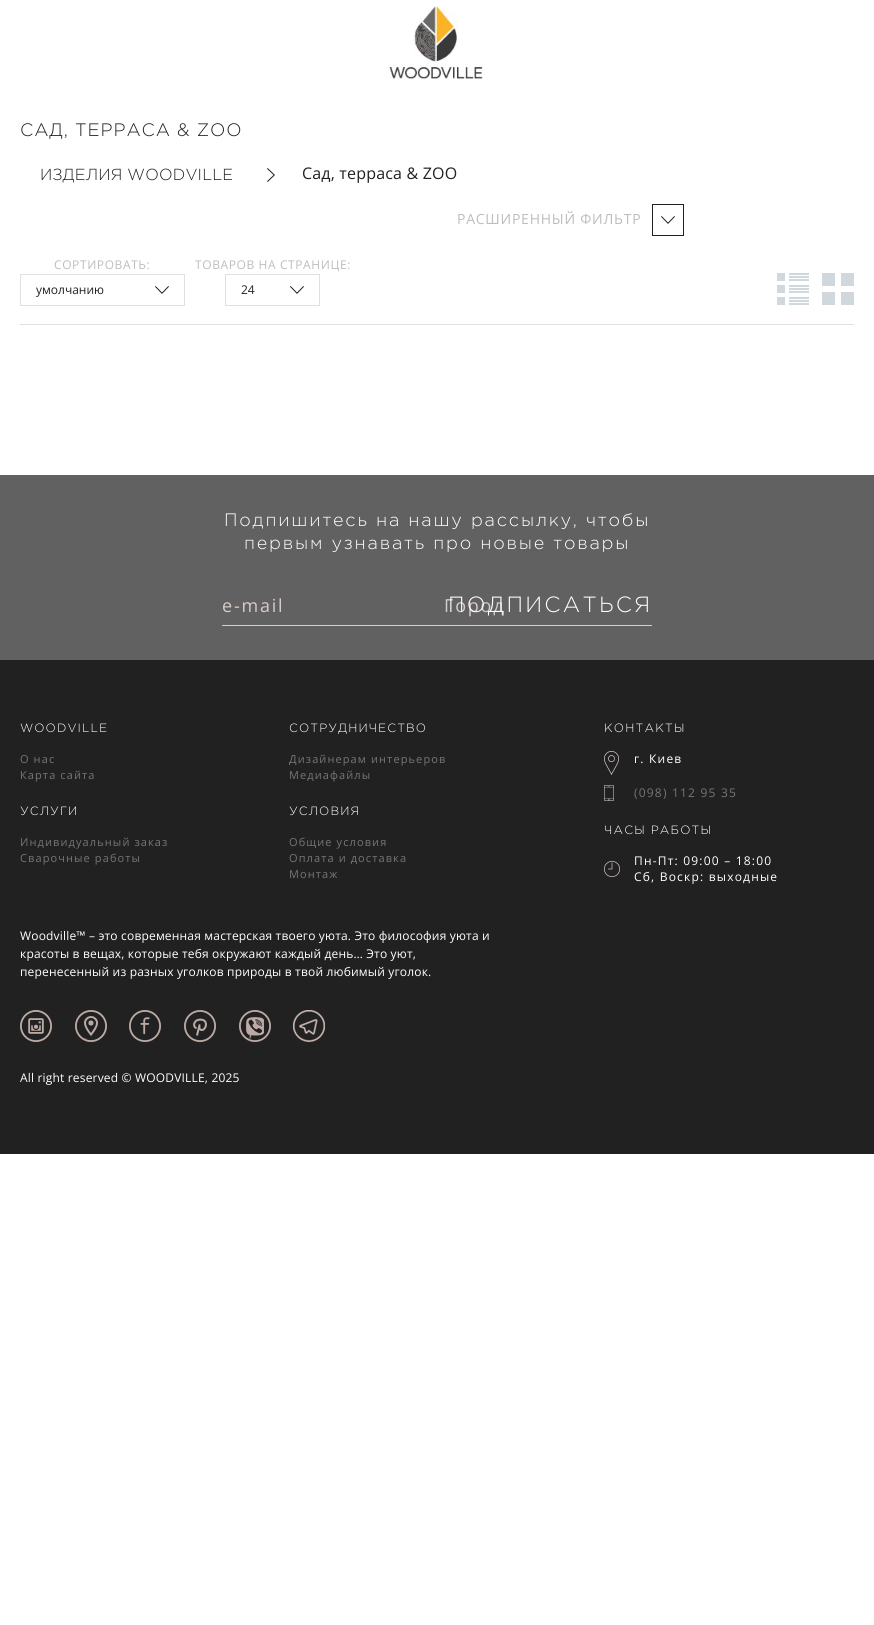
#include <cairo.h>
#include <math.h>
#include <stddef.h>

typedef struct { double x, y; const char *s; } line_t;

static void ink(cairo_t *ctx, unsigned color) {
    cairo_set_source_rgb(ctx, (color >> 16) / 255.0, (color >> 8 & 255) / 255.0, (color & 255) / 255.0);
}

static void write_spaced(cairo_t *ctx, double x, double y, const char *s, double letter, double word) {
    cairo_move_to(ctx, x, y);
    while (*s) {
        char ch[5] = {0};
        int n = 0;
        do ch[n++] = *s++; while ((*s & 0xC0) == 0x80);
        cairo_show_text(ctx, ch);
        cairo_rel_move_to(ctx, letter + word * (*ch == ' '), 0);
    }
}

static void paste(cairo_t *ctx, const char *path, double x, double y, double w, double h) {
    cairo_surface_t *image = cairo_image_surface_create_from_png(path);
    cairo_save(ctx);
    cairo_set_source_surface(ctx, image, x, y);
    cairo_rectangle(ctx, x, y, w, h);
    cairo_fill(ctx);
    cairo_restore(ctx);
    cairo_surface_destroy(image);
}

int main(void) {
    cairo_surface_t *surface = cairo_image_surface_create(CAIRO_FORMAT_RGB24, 874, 1625);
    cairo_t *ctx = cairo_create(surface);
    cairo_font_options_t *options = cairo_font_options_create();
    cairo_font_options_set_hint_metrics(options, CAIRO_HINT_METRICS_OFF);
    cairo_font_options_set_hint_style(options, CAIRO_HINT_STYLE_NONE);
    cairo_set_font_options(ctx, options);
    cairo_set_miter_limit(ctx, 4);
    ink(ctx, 0xFFFFFF);
    cairo_paint(ctx);
    paste(ctx, "media/1.png", 389, 6, 94, 73);
    cairo_select_font_face(ctx, "Gotham Light", CAIRO_FONT_SLANT_NORMAL, CAIRO_FONT_WEIGHT_NORMAL);
    cairo_set_font_size(ctx, 18);
    ink(ctx, 0x212121);
    write_spaced(ctx, 20, 136, "САД, ТЕРРАСА & ZOO", 0.9, 0);
    cairo_set_font_size(ctx, 16);
    write_spaced(ctx, 40, 180, "ИЗДЕЛИЯ WOODVILLE", 0.18, 0);
    paste(ctx, "media/2.png", 267, 168, 8, 14);
    cairo_select_font_face(ctx, "Open Sans", CAIRO_FONT_SLANT_NORMAL, CAIRO_FONT_WEIGHT_NORMAL);
    write_spaced(ctx, 302, 179, "Сад, терраса & ZOO", 0.18, 0);
    cairo_set_font_size(ctx, 14);
    ink(ctx, 0xBDBDBD);
    write_spaced(ctx, 457, 224, "РАСШИРЕННЫЙ ФИЛЬТР", 0.75, 0);
    paste(ctx, "media/3.png", 661, 216, 14, 8);
    cairo_rectangle(ctx, 652.5, 204.5, 31, 31);
    ink(ctx, 0x212121);
    cairo_set_line_width(ctx, 1);
    cairo_stroke(ctx);
    ink(ctx, 0xE0E0E0);
    cairo_rectangle(ctx, 20, 324, 834, 1);
    cairo_fill(ctx);
    cairo_set_font_size(ctx, 12);
    ink(ctx, 0xBDBDBD);
    write_spaced(ctx, 54, 269, "СОРТИРОВАТЬ:", 0.6, 0);
    paste(ctx, "media/3.png", 155, 286, 14, 8);
    cairo_rectangle(ctx, 20.5, 274.5, 164, 31);
    ink(ctx, 0xE0E0E0);
    cairo_stroke(ctx);
    ink(ctx, 0x212121);
    cairo_move_to(ctx, 36, 294);
    cairo_show_text(ctx, "умолчанию");
    ink(ctx, 0xBDBDBD);
    write_spaced(ctx, 195, 269, "ТОВАРОВ НА СТРАНИЦЕ:", 0.6, 0);
    paste(ctx, "media/3.png", 290, 286, 14, 8);
    cairo_rectangle(ctx, 225.5, 274.5, 94, 31);
    ink(ctx, 0xE0E0E0);
    cairo_stroke(ctx);
    ink(ctx, 0x212121);
    cairo_move_to(ctx, 241, 294);
    cairo_show_text(ctx, "24");
    paste(ctx, "media/4.png", 777, 273, 32, 32);
    paste(ctx, "media/5.png", 822, 273, 32, 32);
    ink(ctx, 0x616161);
    cairo_rectangle(ctx, 0, 475, 874, 185);
    cairo_fill(ctx);
    cairo_select_font_face(ctx, "Gotham Light", CAIRO_FONT_SLANT_NORMAL, CAIRO_FONT_WEIGHT_NORMAL);
    cairo_set_font_size(ctx, 18);
    ink(ctx, 0xFFFFFF);
    write_spaced(ctx, 224, 526, "Подпишитесь на нашу рассылку, чтобы", 1.8, 0);
    write_spaced(ctx, 244, 549, "первым узнавать про новые товары", 1.8, 0);
    ink(ctx, 0xD7CCC8);
    cairo_rectangle(ctx, 222, 625, 430, 1);
    cairo_fill(ctx);
    cairo_select_font_face(ctx, "Open Sans", CAIRO_FONT_SLANT_NORMAL, CAIRO_FONT_WEIGHT_NORMAL);
    write_spaced(ctx, 222, 612, "e-mail", 1.8, 0);
    write_spaced(ctx, 444, 612, "Город", 1.8, 0);
    cairo_select_font_face(ctx, "Gotham Light", CAIRO_FONT_SLANT_NORMAL, CAIRO_FONT_WEIGHT_NORMAL);
    cairo_set_font_size(ctx, 22);
    ink(ctx, 0xFFFFFF);
    write_spaced(ctx, 448, 612, "ПОДПИСАТЬСЯ", 2.25, 0);
    ink(ctx, 0x212121);
    cairo_rectangle(ctx, 0, 660, 874, 494);
    cairo_fill(ctx);
    cairo_set_font_size(ctx, 12);
    ink(ctx, 0xFFFFFF);
    write_spaced(ctx, 20, 732, "WOODVILLE", 1.1, 0);
    cairo_select_font_face(ctx, "Open Sans", CAIRO_FONT_SLANT_NORMAL, CAIRO_FONT_WEIGHT_NORMAL);
    cairo_set_font_size(ctx, 11);
    ink(ctx, 0x757575);
    write_spaced(ctx, 20, 763, "О нас", 1.1, 0);
    write_spaced(ctx, 20, 779, "Карта сайта", 1.1, 0);
    cairo_select_font_face(ctx, "Gotham Light", CAIRO_FONT_SLANT_NORMAL, CAIRO_FONT_WEIGHT_NORMAL);
    cairo_set_font_size(ctx, 12);
    ink(ctx, 0xFFFFFF);
    write_spaced(ctx, 289, 732, "СОТРУДНИЧЕСТВО", 1.1, 0);
    cairo_select_font_face(ctx, "Open Sans", CAIRO_FONT_SLANT_NORMAL, CAIRO_FONT_WEIGHT_NORMAL);
    cairo_set_font_size(ctx, 11);
    ink(ctx, 0x757575);
    write_spaced(ctx, 289, 763, "Дизайнерам интерьеров", 1.1, 0);
    write_spaced(ctx, 289, 779, "Медиафайлы", 1.1, 0);
    cairo_select_font_face(ctx, "Gotham Light", CAIRO_FONT_SLANT_NORMAL, CAIRO_FONT_WEIGHT_NORMAL);
    cairo_set_font_size(ctx, 12);
    ink(ctx, 0xFFFFFF);
    write_spaced(ctx, 20, 815, "УСЛУГИ", 1.1, 0);
    cairo_select_font_face(ctx, "Open Sans", CAIRO_FONT_SLANT_NORMAL, CAIRO_FONT_WEIGHT_NORMAL);
    cairo_set_font_size(ctx, 11);
    ink(ctx, 0x757575);
    write_spaced(ctx, 20, 846, "Индивидуальный заказ", 1.1, 0);
    write_spaced(ctx, 20, 862, "Сварочные работы", 1.1, 0);
    cairo_select_font_face(ctx, "Gotham Light", CAIRO_FONT_SLANT_NORMAL, CAIRO_FONT_WEIGHT_NORMAL);
    cairo_set_font_size(ctx, 12);
    ink(ctx, 0xFFFFFF);
    write_spaced(ctx, 289, 815, "УСЛОВИЯ", 1.1, 0);
    cairo_select_font_face(ctx, "Open Sans", CAIRO_FONT_SLANT_NORMAL, CAIRO_FONT_WEIGHT_NORMAL);
    cairo_set_font_size(ctx, 11);
    ink(ctx, 0x757575);
    {
        static const line_t items[] = {
            {289, 846, "Общие условия"},
            {289, 862, "Оплата и доставка"},
            {289, 878, "Монтаж"},
        };
        for (size_t i = 0; i < sizeof items / sizeof *items; i++) {
            write_spaced(ctx, items[i].x, items[i].y, items[i].s, 1.1, 0);
        }
    }
    cairo_set_font_size(ctx, 12);
    ink(ctx, 0xFFFFFF);
    {
        static const line_t items[] = {
            {20, 940, "Woodville™ – это современная мастерская твоего уюта. Это философия уюта и"},
            {20, 958, "красоты в вещах, которые тебя окружают каждый день… Это уют,"},
            {20, 976, "перенесенный из разных уголков природы в твой любимый уголок."},
        };
        for (size_t i = 0; i < sizeof items / sizeof *items; i++) {
            write_spaced(ctx, items[i].x, items[i].y, items[i].s, 0.18, 0);
        }
    }
    paste(ctx, "media/6.png", 20, 1010, 32, 32);
    paste(ctx, "media/7.png", 75, 1010, 32, 32);
    paste(ctx, "media/8.png", 129, 1010, 32, 32);
    paste(ctx, "media/9.png", 184, 1010, 32, 32);
    paste(ctx, "media/10.png", 239, 1010, 32, 32);
    paste(ctx, "media/11.png", 293, 1010, 32, 32);
    write_spaced(ctx, 20, 1082, "All right reserved © WOODVILLE, 2025", 0.18, 0);
    cairo_select_font_face(ctx, "Gotham Light", CAIRO_FONT_SLANT_NORMAL, CAIRO_FONT_WEIGHT_NORMAL);
    write_spaced(ctx, 604, 732, "КОНТАКТЫ", 1.2, 0);
    paste(ctx, "media/12.png", 604, 751, 15, 24);
    cairo_select_font_face(ctx, "Open Sans", CAIRO_FONT_SLANT_NORMAL, CAIRO_FONT_WEIGHT_NORMAL);
    write_spaced(ctx, 634, 763, "г. Киев", 1.2, 0);
    paste(ctx, "media/13.png", 604, 785, 10, 16);
    ink(ctx, 0x757575);
    write_spaced(ctx, 634, 797, "(098) 112 95 35", 1.2, 0);
    cairo_select_font_face(ctx, "Gotham Light", CAIRO_FONT_SLANT_NORMAL, CAIRO_FONT_WEIGHT_NORMAL);
    ink(ctx, 0xFFFFFF);
    write_spaced(ctx, 604, 834, "ЧАСЫ РАБОТЫ", 1.2, 0);
    paste(ctx, "media/14.png", 604, 861, 16, 16);
    cairo_select_font_face(ctx, "Open Sans", CAIRO_FONT_SLANT_NORMAL, CAIRO_FONT_WEIGHT_NORMAL);
    write_spaced(ctx, 634, 865, "Пн-Пт: 09:00 – 18:00", 1.2, 0);
    write_spaced(ctx, 634, 881, "Сб, Воскр: выходные", 1.2, 0);
    cairo_surface_write_to_png(surface, "image.png");
    cairo_font_options_destroy(options);
    cairo_destroy(ctx);
    cairo_surface_destroy(surface);
    return 0;
}
